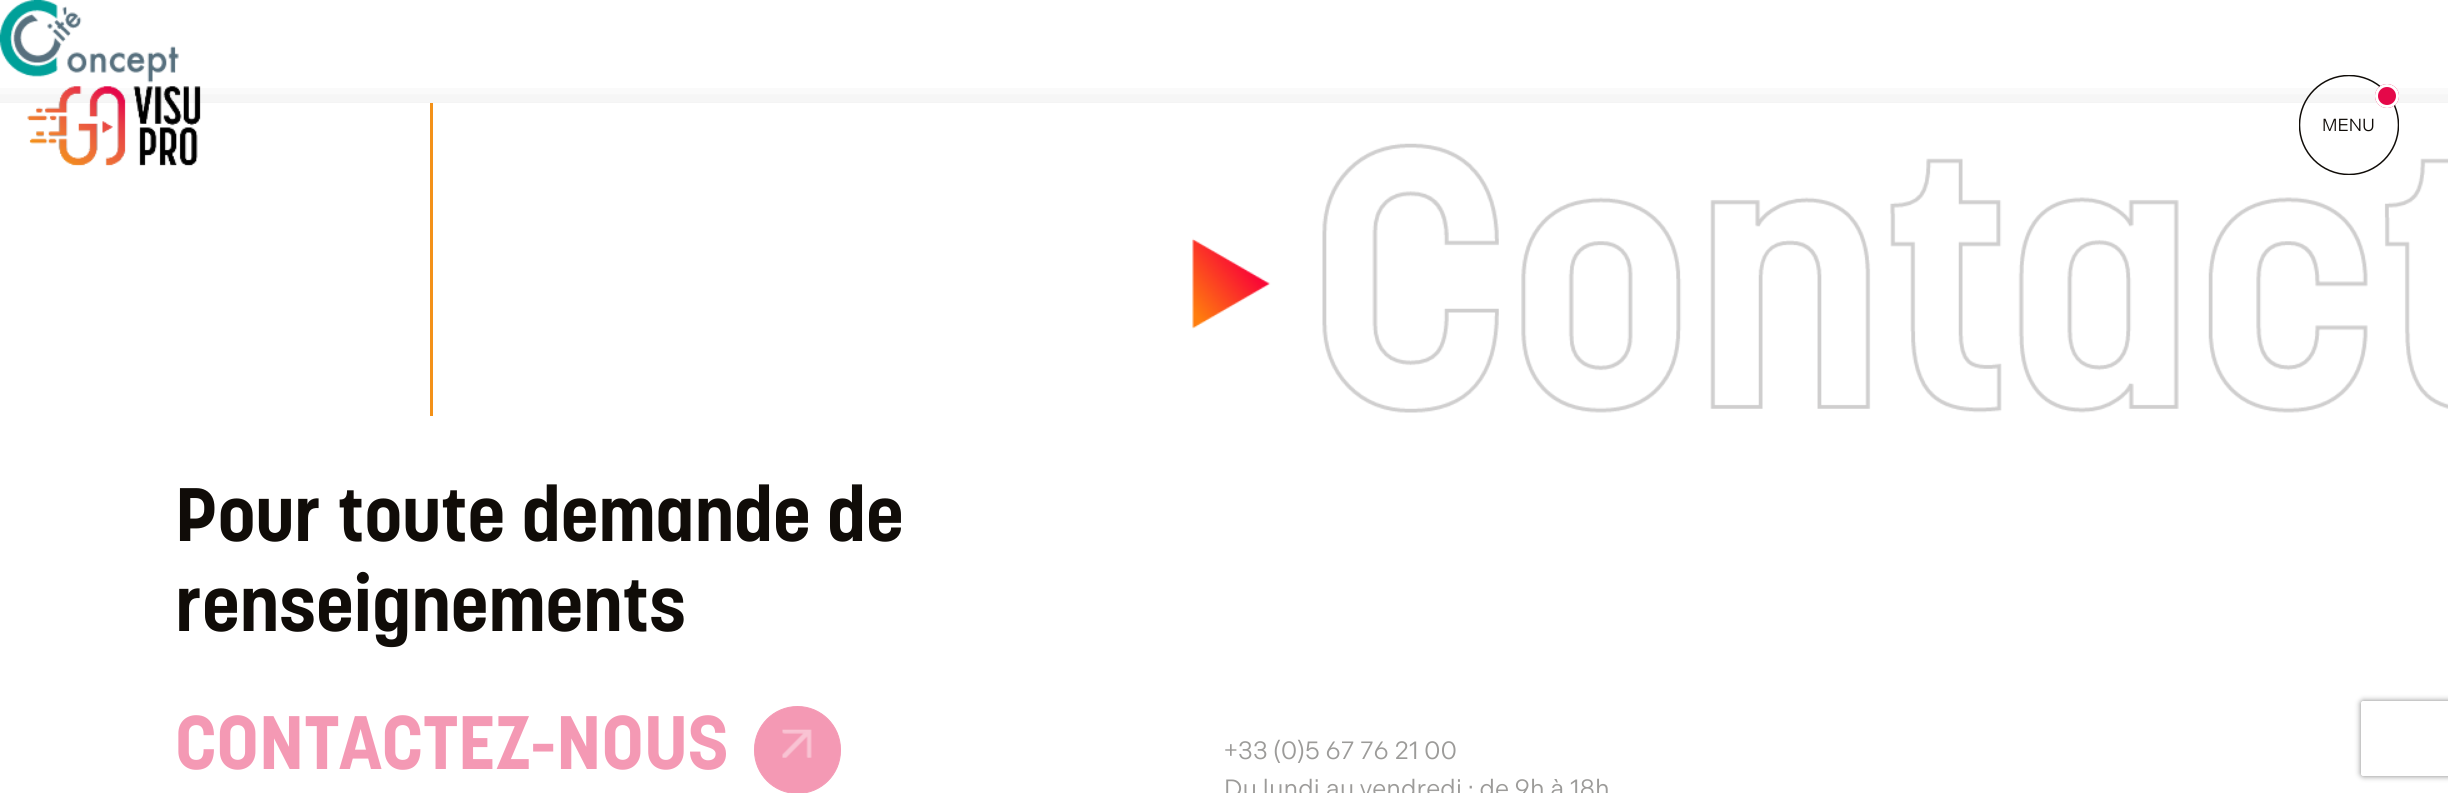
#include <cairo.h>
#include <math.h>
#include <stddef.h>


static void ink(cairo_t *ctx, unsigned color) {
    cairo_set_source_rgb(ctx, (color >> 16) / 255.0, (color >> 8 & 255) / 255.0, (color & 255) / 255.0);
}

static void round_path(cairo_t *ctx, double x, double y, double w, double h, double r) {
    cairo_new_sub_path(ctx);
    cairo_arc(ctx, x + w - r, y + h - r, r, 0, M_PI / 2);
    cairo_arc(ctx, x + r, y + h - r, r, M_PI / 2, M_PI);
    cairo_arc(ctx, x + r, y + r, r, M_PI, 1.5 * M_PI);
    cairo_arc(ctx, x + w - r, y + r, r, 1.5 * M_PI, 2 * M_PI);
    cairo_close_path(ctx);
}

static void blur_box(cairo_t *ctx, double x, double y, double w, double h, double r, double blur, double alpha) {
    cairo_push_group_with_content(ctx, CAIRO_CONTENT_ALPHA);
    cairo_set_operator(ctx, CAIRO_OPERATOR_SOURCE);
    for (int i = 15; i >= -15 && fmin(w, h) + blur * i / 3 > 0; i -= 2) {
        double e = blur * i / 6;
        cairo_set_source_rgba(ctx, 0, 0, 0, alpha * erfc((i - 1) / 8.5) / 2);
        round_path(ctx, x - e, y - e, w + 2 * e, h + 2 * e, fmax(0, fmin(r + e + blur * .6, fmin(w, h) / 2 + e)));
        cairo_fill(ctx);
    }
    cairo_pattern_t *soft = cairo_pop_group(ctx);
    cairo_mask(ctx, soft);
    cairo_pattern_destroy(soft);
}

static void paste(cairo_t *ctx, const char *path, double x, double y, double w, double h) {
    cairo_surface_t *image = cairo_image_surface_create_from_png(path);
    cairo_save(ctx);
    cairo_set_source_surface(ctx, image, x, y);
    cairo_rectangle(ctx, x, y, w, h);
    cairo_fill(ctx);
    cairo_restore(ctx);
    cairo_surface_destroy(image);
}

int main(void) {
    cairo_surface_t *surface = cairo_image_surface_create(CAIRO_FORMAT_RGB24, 2448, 793);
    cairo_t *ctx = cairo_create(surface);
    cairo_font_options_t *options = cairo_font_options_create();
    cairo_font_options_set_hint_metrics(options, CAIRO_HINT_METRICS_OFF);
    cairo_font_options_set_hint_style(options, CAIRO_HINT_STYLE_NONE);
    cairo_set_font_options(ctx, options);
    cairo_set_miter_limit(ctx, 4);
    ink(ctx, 0xFFFFFF);
    cairo_paint(ctx);
    paste(ctx, "media/2.png", 0, 0, 179, 83);
    cairo_save(ctx);
    cairo_rectangle(ctx, 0, 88, 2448, 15);
    cairo_clip(ctx);
    ink(ctx, 0x000000);
    blur_box(ctx, -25, 115, 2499, 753, 0, 25, 0.14);
    cairo_restore(ctx);
    paste(ctx, "media/1.png", 27, 86, 174, 80);
    paste(ctx, "media/3.png", 1192, 143, 1256, 270);
    cairo_save(ctx);
    cairo_rectangle(ctx, 2299, 75, 100, 100);
    cairo_clip(ctx);
    cairo_arc(ctx, 2349, 125, 49.5, 0, 2 * M_PI);
    ink(ctx, 0x100C08);
    cairo_set_line_width(ctx, 1.5);
    cairo_stroke(ctx);
    cairo_restore(ctx);
    ink(ctx, 0xE50849);
    cairo_arc(ctx, 2387, 96, 12, 0, 2 * M_PI);
    cairo_fill(ctx);
    cairo_arc(ctx, 2387, 96, 10.5, 0, 2 * M_PI);
    ink(ctx, 0xFFFFFF);
    cairo_set_line_width(ctx, 3);
    cairo_stroke(ctx);
    cairo_select_font_face(ctx, "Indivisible", CAIRO_FONT_SLANT_NORMAL, CAIRO_FONT_WEIGHT_NORMAL);
    cairo_set_font_size(ctx, 17.5);
    ink(ctx, 0x100C08);
    cairo_move_to(ctx, 2322, 131);
    cairo_show_text(ctx, "MENU");
    ink(ctx, 0xF39118);
    cairo_rectangle(ctx, 430, 103, 3, 313);
    cairo_fill(ctx);
    cairo_select_font_face(ctx, "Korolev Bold", CAIRO_FONT_SLANT_NORMAL, CAIRO_FONT_WEIGHT_BOLD);
    cairo_set_font_size(ctx, 75);
    ink(ctx, 0x100C08);
    cairo_move_to(ctx, 175, 541);
    cairo_show_text(ctx, "Pour toute demande de");
    cairo_move_to(ctx, 175, 631);
    cairo_show_text(ctx, "renseignements");
    ink(ctx, 0xF499B4);
    cairo_move_to(ctx, 175, 769);
    cairo_show_text(ctx, "CONTACTEZ-NOUS");
    round_path(ctx, 754.5, 706.5, 86, 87, 43);
    cairo_fill_preserve(ctx);
    cairo_set_line_width(ctx, 1);
    cairo_stroke(ctx);
    paste(ctx, "media/4.png", 782, 729, 30, 29);
    cairo_select_font_face(ctx, "Indivisible", CAIRO_FONT_SLANT_NORMAL, CAIRO_FONT_WEIGHT_NORMAL);
    cairo_set_font_size(ctx, 25);
    ink(ctx, 0x9C9B99);
    cairo_move_to(ctx, 1224, 759);
    cairo_show_text(ctx, "+33 (0)5 67 76 21 00");
    cairo_move_to(ctx, 1224, 797);
    cairo_show_text(ctx, "Du lundi au vendredi : de 9h à 18h");
    cairo_save(ctx);
    cairo_set_fill_rule(ctx, CAIRO_FILL_RULE_EVEN_ODD);
    cairo_new_path(ctx);
    cairo_move_to(ctx, 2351, 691);
    cairo_line_to(ctx, 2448, 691);
    cairo_line_to(ctx, 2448, 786);
    cairo_line_to(ctx, 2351, 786);
    cairo_close_path(ctx);
    cairo_move_to(ctx, 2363.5, 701);
    cairo_line_to(ctx, 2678.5, 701);
    cairo_curve_to(ctx, 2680, 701, 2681, 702, 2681, 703.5);
    cairo_line_to(ctx, 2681, 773.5);
    cairo_curve_to(ctx, 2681, 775, 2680, 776, 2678.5, 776);
    cairo_line_to(ctx, 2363.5, 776);
    cairo_curve_to(ctx, 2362, 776, 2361, 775, 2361, 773.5);
    cairo_line_to(ctx, 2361, 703.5);
    cairo_curve_to(ctx, 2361, 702, 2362, 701, 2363.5, 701);
    cairo_close_path(ctx);
    cairo_clip(ctx);
    ink(ctx, 0x808080);
    blur_box(ctx, 2361, 701, 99, 75, 2.5, 3, 1);
    cairo_restore(ctx);
    cairo_surface_write_to_png(surface, "image.png");
    cairo_font_options_destroy(options);
    cairo_destroy(ctx);
    cairo_surface_destroy(surface);
    return 0;
}
